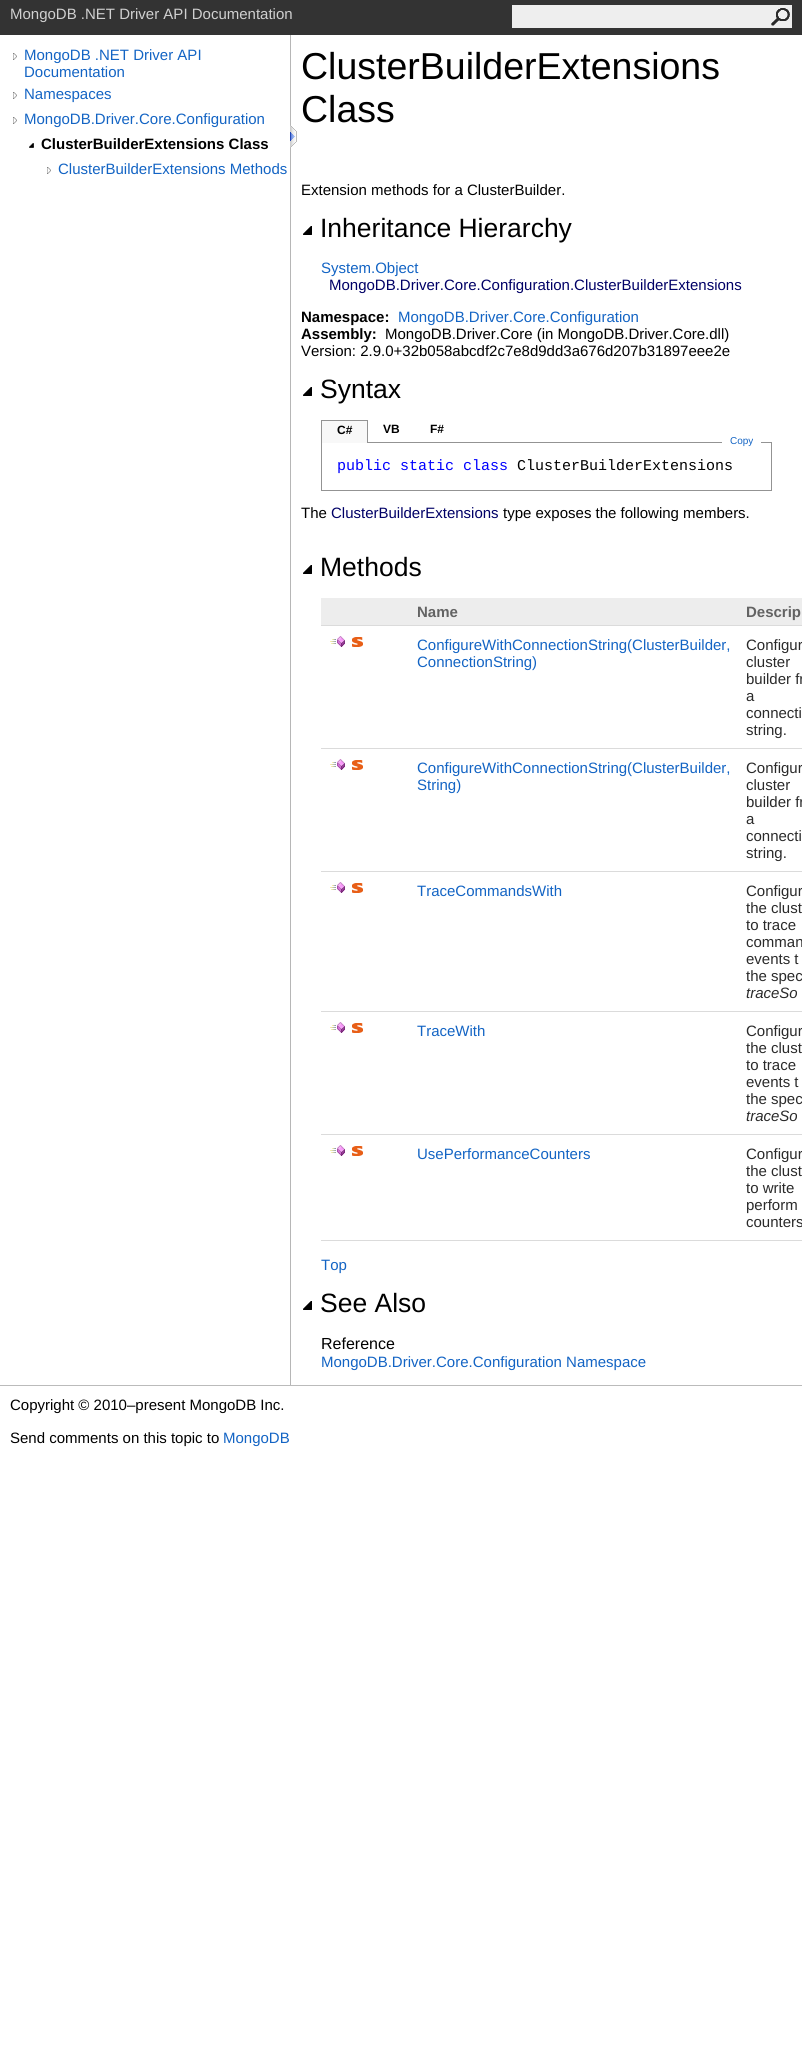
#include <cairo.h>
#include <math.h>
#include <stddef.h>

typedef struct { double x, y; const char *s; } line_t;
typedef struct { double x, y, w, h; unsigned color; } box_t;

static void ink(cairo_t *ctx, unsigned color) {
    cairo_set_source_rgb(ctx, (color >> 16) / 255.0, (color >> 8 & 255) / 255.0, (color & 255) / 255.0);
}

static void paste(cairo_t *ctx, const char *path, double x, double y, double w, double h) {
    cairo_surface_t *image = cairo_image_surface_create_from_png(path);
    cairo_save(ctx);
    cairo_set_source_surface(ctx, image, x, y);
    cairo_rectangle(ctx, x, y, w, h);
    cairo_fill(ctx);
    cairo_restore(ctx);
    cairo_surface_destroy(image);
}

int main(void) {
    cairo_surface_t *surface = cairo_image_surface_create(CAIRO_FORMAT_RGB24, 802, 2047);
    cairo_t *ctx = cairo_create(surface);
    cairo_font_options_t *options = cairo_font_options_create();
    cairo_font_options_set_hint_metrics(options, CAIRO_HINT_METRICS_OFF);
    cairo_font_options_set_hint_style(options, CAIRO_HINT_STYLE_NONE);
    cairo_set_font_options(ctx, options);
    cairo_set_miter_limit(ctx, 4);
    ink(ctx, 0xFFFFFF);
    cairo_paint(ctx);
    ink(ctx, 0x333333);
    cairo_rectangle(ctx, 0, 0, 802, 35);
    cairo_fill(ctx);
    cairo_select_font_face(ctx, "Liberation Sans", CAIRO_FONT_SLANT_NORMAL, CAIRO_FONT_WEIGHT_NORMAL);
    cairo_set_font_size(ctx, 15);
    ink(ctx, 0xD0D0D0);
    cairo_move_to(ctx, 10, 19);
    cairo_show_text(ctx, "MongoDB .NET Driver API Documentation");
    ink(ctx, 0xEEEEEE);
    cairo_rectangle(ctx, 512, 5, 280, 23);
    cairo_fill(ctx);
    paste(ctx, "media/1.png", 771, 8, 19, 18);
    ink(ctx, 0xB6B6B6);
    cairo_rectangle(ctx, 290, 35, 1, 1350);
    cairo_fill(ctx);
    paste(ctx, "media/2.png", 13, 53, 4, 7);
    ink(ctx, 0x1364C4);
    cairo_move_to(ctx, 24, 60);
    cairo_show_text(ctx, "MongoDB .NET Driver API");
    cairo_move_to(ctx, 24, 77);
    cairo_show_text(ctx, "Documentation");
    paste(ctx, "media/2.png", 13, 92, 4, 7);
    cairo_move_to(ctx, 24, 99);
    cairo_show_text(ctx, "Namespaces");
    paste(ctx, "media/2.png", 13, 117, 4, 7);
    cairo_move_to(ctx, 24, 124);
    cairo_show_text(ctx, "MongoDB.Driver.Core.Configuration");
    paste(ctx, "media/3.png", 29, 143, 5, 5);
    cairo_select_font_face(ctx, "Liberation Sans", CAIRO_FONT_SLANT_NORMAL, CAIRO_FONT_WEIGHT_BOLD);
    ink(ctx, 0x000000);
    cairo_move_to(ctx, 41, 149);
    cairo_show_text(ctx, "ClusterBuilderExtensions Class");
    paste(ctx, "media/2.png", 47, 167, 4, 7);
    cairo_select_font_face(ctx, "Liberation Sans", CAIRO_FONT_SLANT_NORMAL, CAIRO_FONT_WEIGHT_NORMAL);
    ink(ctx, 0x1364C4);
    cairo_move_to(ctx, 58, 174);
    cairo_show_text(ctx, "ClusterBuilderExtensions Methods");
    paste(ctx, "media/4.png", 290, 125, 7, 23);
    cairo_set_font_size(ctx, 37.5);
    ink(ctx, 0x000000);
    cairo_move_to(ctx, 301, 79);
    cairo_show_text(ctx, "ClusterBuilderExtensions");
    cairo_move_to(ctx, 301, 122);
    cairo_show_text(ctx, "Class");
    cairo_set_font_size(ctx, 15);
    cairo_move_to(ctx, 301, 195);
    cairo_show_text(ctx, "Extension methods for a ClusterBuilder.");
    paste(ctx, "media/5.png", 303, 226, 9, 9);
    cairo_set_font_size(ctx, 26.5);
    cairo_move_to(ctx, 320, 237);
    cairo_show_text(ctx, "Inheritance Hierarchy");
    cairo_set_font_size(ctx, 15);
    ink(ctx, 0x1364C4);
    cairo_move_to(ctx, 321, 273);
    cairo_show_text(ctx, "System.Object");
    ink(ctx, 0x000066);
    cairo_move_to(ctx, 329, 290);
    cairo_show_text(ctx, "MongoDB.Driver.Core.Configuration.ClusterBuilderExtensions");
    cairo_select_font_face(ctx, "Liberation Sans", CAIRO_FONT_SLANT_NORMAL, CAIRO_FONT_WEIGHT_BOLD);
    ink(ctx, 0x000000);
    cairo_move_to(ctx, 301, 322);
    cairo_show_text(ctx, "Namespace:");
    cairo_select_font_face(ctx, "Liberation Sans", CAIRO_FONT_SLANT_NORMAL, CAIRO_FONT_WEIGHT_NORMAL);
    ink(ctx, 0x1364C4);
    cairo_move_to(ctx, 398, 322);
    cairo_show_text(ctx, "MongoDB.Driver.Core.Configuration");
    cairo_select_font_face(ctx, "Liberation Sans", CAIRO_FONT_SLANT_NORMAL, CAIRO_FONT_WEIGHT_BOLD);
    ink(ctx, 0x000000);
    cairo_move_to(ctx, 301, 339);
    cairo_show_text(ctx, "Assembly:");
    cairo_select_font_face(ctx, "Liberation Sans", CAIRO_FONT_SLANT_NORMAL, CAIRO_FONT_WEIGHT_NORMAL);
    cairo_move_to(ctx, 385, 339);
    cairo_show_text(ctx, "MongoDB.Driver.Core (in MongoDB.Driver.Core.dll)");
    cairo_move_to(ctx, 301, 356);
    cairo_show_text(ctx, "Version: 2.9.0+32b058abcdf2c7e8d9dd3a676d207b31897eee2e");
    paste(ctx, "media/5.png", 303, 387, 9, 9);
    cairo_set_font_size(ctx, 26.5);
    cairo_move_to(ctx, 320, 398);
    cairo_show_text(ctx, "Syntax");
    cairo_rectangle(ctx, 321.5, 442.5, 450, 48);
    ink(ctx, 0x939393);
    cairo_set_line_width(ctx, 1);
    cairo_stroke(ctx);
    {
        static const box_t items[] = {
            {322, 421, 45, 22, 0xF8F8F8},
            {321, 420, 47, 1, 0x939393},
            {367, 420, 1, 23, 0x939393},
            {321, 420, 1, 23, 0x939393},
        };
        for (size_t i = 0; i < sizeof items / sizeof *items; i++) {
            ink(ctx, items[i].color);
            cairo_rectangle(ctx, items[i].x, items[i].y, items[i].w, items[i].h);
            cairo_fill(ctx);
        }
    }
    cairo_select_font_face(ctx, "Liberation Sans", CAIRO_FONT_SLANT_NORMAL, CAIRO_FONT_WEIGHT_BOLD);
    cairo_set_font_size(ctx, 12);
    ink(ctx, 0x000000);
    {
        static const line_t items[] = {
            {337, 434, "C#"},
            {383, 433, "VB"},
            {430, 433, "F#"},
        };
        for (size_t i = 0; i < sizeof items / sizeof *items; i++) {
            cairo_move_to(ctx, items[i].x, items[i].y);
            cairo_show_text(ctx, items[i].s);
        }
    }
    ink(ctx, 0xFFFFFF);
    cairo_rectangle(ctx, 722, 442, 39, 1);
    cairo_fill(ctx);
    cairo_select_font_face(ctx, "Liberation Sans", CAIRO_FONT_SLANT_NORMAL, CAIRO_FONT_WEIGHT_NORMAL);
    cairo_set_font_size(ctx, 10);
    ink(ctx, 0x1364C4);
    cairo_move_to(ctx, 730, 444);
    cairo_show_text(ctx, "Copy");
    cairo_select_font_face(ctx, "Liberation Mono", CAIRO_FONT_SLANT_NORMAL, CAIRO_FONT_WEIGHT_NORMAL);
    cairo_set_font_size(ctx, 15);
    ink(ctx, 0x0000FF);
    cairo_move_to(ctx, 337, 470);
    cairo_show_text(ctx, "public static class");
    ink(ctx, 0x000000);
    cairo_move_to(ctx, 517, 470);
    cairo_show_text(ctx, "ClusterBuilderExtensions");
    cairo_select_font_face(ctx, "Liberation Sans", CAIRO_FONT_SLANT_NORMAL, CAIRO_FONT_WEIGHT_NORMAL);
    cairo_move_to(ctx, 301, 518);
    cairo_show_text(ctx, "The");
    ink(ctx, 0x000066);
    cairo_move_to(ctx, 331, 518);
    cairo_show_text(ctx, "ClusterBuilderExtensions");
    ink(ctx, 0x000000);
    cairo_move_to(ctx, 503, 518);
    cairo_show_text(ctx, "type exposes the following members.");
    paste(ctx, "media/5.png", 303, 565, 9, 9);
    cairo_set_font_size(ctx, 26.5);
    cairo_move_to(ctx, 320, 576);
    cairo_show_text(ctx, "Methods");
    ink(ctx, 0xEDEDED);
    cairo_rectangle(ctx, 321, 598, 481, 27);
    cairo_fill(ctx);
    cairo_select_font_face(ctx, "Liberation Sans", CAIRO_FONT_SLANT_NORMAL, CAIRO_FONT_WEIGHT_BOLD);
    cairo_set_font_size(ctx, 15);
    ink(ctx, 0x636363);
    cairo_move_to(ctx, 417, 617);
    cairo_show_text(ctx, "Name");
    ink(ctx, 0xDBDBDB);
    cairo_rectangle(ctx, 321, 625, 481, 1);
    cairo_fill(ctx);
    ink(ctx, 0x636363);
    cairo_move_to(ctx, 746, 617);
    cairo_show_text(ctx, "Descrip");
    paste(ctx, "media/6.png", 330, 636, 15, 11);
    paste(ctx, "media/7.png", 352, 637, 11, 10);
    cairo_select_font_face(ctx, "Liberation Sans", CAIRO_FONT_SLANT_NORMAL, CAIRO_FONT_WEIGHT_NORMAL);
    ink(ctx, 0x1364C4);
    cairo_move_to(ctx, 417, 650);
    cairo_show_text(ctx, "ConfigureWithConnectionString(ClusterBuilder,");
    cairo_move_to(ctx, 417, 667);
    cairo_show_text(ctx, "ConnectionString)");
    ink(ctx, 0xDBDBDB);
    cairo_rectangle(ctx, 321, 748, 481, 1);
    cairo_fill(ctx);
    ink(ctx, 0x2A2A2A);
    {
        static const line_t items[] = {
            {746, 650, "Configur"},
            {746, 667, "cluster"},
            {746, 684, "builder fr"},
            {746, 701, "a"},
            {746, 718, "connecti"},
            {746, 735, "string."},
        };
        for (size_t i = 0; i < sizeof items / sizeof *items; i++) {
            cairo_move_to(ctx, items[i].x, items[i].y);
            cairo_show_text(ctx, items[i].s);
        }
    }
    paste(ctx, "media/6.png", 330, 759, 15, 11);
    paste(ctx, "media/7.png", 352, 760, 11, 10);
    ink(ctx, 0x1364C4);
    cairo_move_to(ctx, 417, 773);
    cairo_show_text(ctx, "ConfigureWithConnectionString(ClusterBuilder,");
    cairo_move_to(ctx, 417, 790);
    cairo_show_text(ctx, "String)");
    ink(ctx, 0xDBDBDB);
    cairo_rectangle(ctx, 321, 871, 481, 1);
    cairo_fill(ctx);
    ink(ctx, 0x2A2A2A);
    {
        static const line_t items[] = {
            {746, 773, "Configur"},
            {746, 790, "cluster"},
            {746, 807, "builder fr"},
            {746, 824, "a"},
            {746, 841, "connecti"},
            {746, 858, "string."},
        };
        for (size_t i = 0; i < sizeof items / sizeof *items; i++) {
            cairo_move_to(ctx, items[i].x, items[i].y);
            cairo_show_text(ctx, items[i].s);
        }
    }
    paste(ctx, "media/6.png", 330, 882, 15, 11);
    paste(ctx, "media/7.png", 352, 883, 11, 10);
    ink(ctx, 0x1364C4);
    cairo_move_to(ctx, 417, 896);
    cairo_show_text(ctx, "TraceCommandsWith");
    ink(ctx, 0xDBDBDB);
    cairo_rectangle(ctx, 321, 1011, 481, 1);
    cairo_fill(ctx);
    ink(ctx, 0x2A2A2A);
    {
        static const line_t items[] = {
            {746, 896, "Configur"},
            {746, 913, "the clust"},
            {746, 930, "to trace"},
            {746, 947, "comman"},
            {746, 964, "events t"},
            {746, 981, "the spec"},
        };
        for (size_t i = 0; i < sizeof items / sizeof *items; i++) {
            cairo_move_to(ctx, items[i].x, items[i].y);
            cairo_show_text(ctx, items[i].s);
        }
    }
    cairo_select_font_face(ctx, "Liberation Sans", CAIRO_FONT_SLANT_ITALIC, CAIRO_FONT_WEIGHT_NORMAL);
    cairo_move_to(ctx, 746, 998);
    cairo_show_text(ctx, "traceSo");
    paste(ctx, "media/6.png", 330, 1022, 15, 11);
    paste(ctx, "media/7.png", 352, 1023, 11, 10);
    cairo_select_font_face(ctx, "Liberation Sans", CAIRO_FONT_SLANT_NORMAL, CAIRO_FONT_WEIGHT_NORMAL);
    ink(ctx, 0x1364C4);
    cairo_move_to(ctx, 417, 1036);
    cairo_show_text(ctx, "TraceWith");
    ink(ctx, 0xDBDBDB);
    cairo_rectangle(ctx, 321, 1134, 481, 1);
    cairo_fill(ctx);
    ink(ctx, 0x2A2A2A);
    {
        static const line_t items[] = {
            {746, 1036, "Configur"},
            {746, 1053, "the clust"},
            {746, 1070, "to trace"},
            {746, 1087, "events t"},
            {746, 1104, "the spec"},
        };
        for (size_t i = 0; i < sizeof items / sizeof *items; i++) {
            cairo_move_to(ctx, items[i].x, items[i].y);
            cairo_show_text(ctx, items[i].s);
        }
    }
    cairo_select_font_face(ctx, "Liberation Sans", CAIRO_FONT_SLANT_ITALIC, CAIRO_FONT_WEIGHT_NORMAL);
    cairo_move_to(ctx, 746, 1121);
    cairo_show_text(ctx, "traceSo");
    paste(ctx, "media/6.png", 330, 1145, 15, 11);
    paste(ctx, "media/7.png", 352, 1146, 11, 10);
    cairo_select_font_face(ctx, "Liberation Sans", CAIRO_FONT_SLANT_NORMAL, CAIRO_FONT_WEIGHT_NORMAL);
    ink(ctx, 0x1364C4);
    cairo_move_to(ctx, 417, 1159);
    cairo_show_text(ctx, "UsePerformanceCounters");
    ink(ctx, 0xDBDBDB);
    cairo_rectangle(ctx, 321, 1240, 481, 1);
    cairo_fill(ctx);
    ink(ctx, 0x2A2A2A);
    {
        static const line_t items[] = {
            {746, 1159, "Configur"},
            {746, 1176, "the clust"},
            {746, 1193, "to write"},
            {746, 1210, "perform"},
            {746, 1227, "counters"},
        };
        for (size_t i = 0; i < sizeof items / sizeof *items; i++) {
            cairo_move_to(ctx, items[i].x, items[i].y);
            cairo_show_text(ctx, items[i].s);
        }
    }
    ink(ctx, 0x1364C4);
    cairo_move_to(ctx, 321, 1270);
    cairo_show_text(ctx, "Top");
    paste(ctx, "media/5.png", 303, 1301, 9, 9);
    cairo_set_font_size(ctx, 26.5);
    ink(ctx, 0x000000);
    cairo_move_to(ctx, 320, 1312);
    cairo_show_text(ctx, "See Also");
    cairo_set_font_size(ctx, 16);
    cairo_move_to(ctx, 321, 1349);
    cairo_show_text(ctx, "Reference");
    cairo_set_font_size(ctx, 15);
    ink(ctx, 0x1364C4);
    cairo_move_to(ctx, 321, 1367);
    cairo_show_text(ctx, "MongoDB.Driver.Core.Configuration Namespace");
    ink(ctx, 0xBBBBBB);
    cairo_rectangle(ctx, 0, 1385, 802, 1);
    cairo_fill(ctx);
    ink(ctx, 0x000000);
    cairo_move_to(ctx, 10, 1410);
    cairo_show_text(ctx, "Copyright © 2010–present MongoDB Inc.");
    cairo_move_to(ctx, 10, 1443);
    cairo_show_text(ctx, "Send comments on this topic to");
    ink(ctx, 0x1364C4);
    cairo_move_to(ctx, 223, 1443);
    cairo_show_text(ctx, "MongoDB");
    cairo_surface_write_to_png(surface, "image.png");
    cairo_font_options_destroy(options);
    cairo_destroy(ctx);
    cairo_surface_destroy(surface);
    return 0;
}
